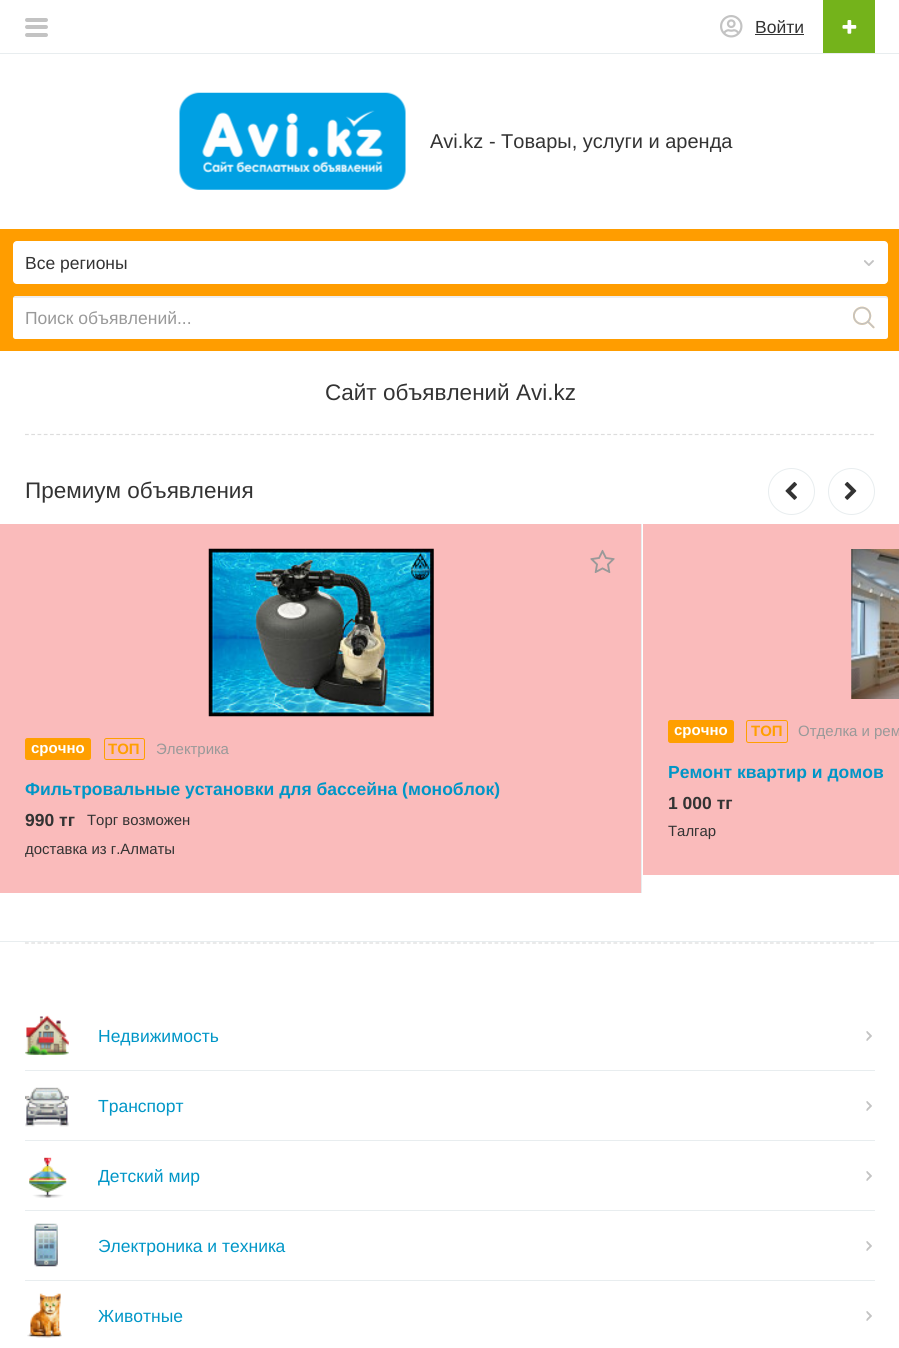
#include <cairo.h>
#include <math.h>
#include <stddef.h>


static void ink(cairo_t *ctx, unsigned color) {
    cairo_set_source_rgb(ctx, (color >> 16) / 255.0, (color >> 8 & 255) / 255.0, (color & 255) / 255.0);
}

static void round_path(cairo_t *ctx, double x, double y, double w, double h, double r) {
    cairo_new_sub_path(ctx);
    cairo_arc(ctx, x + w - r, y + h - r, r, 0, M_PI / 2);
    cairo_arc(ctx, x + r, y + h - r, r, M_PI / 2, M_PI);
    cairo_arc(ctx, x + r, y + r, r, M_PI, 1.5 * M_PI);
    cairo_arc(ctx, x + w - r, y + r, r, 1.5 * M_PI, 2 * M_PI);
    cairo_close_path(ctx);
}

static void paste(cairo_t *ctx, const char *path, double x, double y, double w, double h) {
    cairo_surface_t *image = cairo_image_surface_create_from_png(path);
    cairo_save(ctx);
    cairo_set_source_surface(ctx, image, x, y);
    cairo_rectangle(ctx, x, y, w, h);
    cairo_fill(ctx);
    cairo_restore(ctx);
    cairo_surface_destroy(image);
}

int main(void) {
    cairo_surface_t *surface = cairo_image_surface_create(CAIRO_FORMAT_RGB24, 899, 1348);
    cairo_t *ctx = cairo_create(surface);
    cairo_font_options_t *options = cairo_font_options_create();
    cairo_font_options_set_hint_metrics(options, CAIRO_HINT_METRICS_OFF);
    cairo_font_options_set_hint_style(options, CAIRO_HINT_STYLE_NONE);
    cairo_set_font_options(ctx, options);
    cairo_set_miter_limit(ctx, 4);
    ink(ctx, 0xFFFFFF);
    cairo_paint(ctx);
    ink(ctx, 0xC3C3C3);
    round_path(ctx, 25, 18, 23, 4, 2);
    cairo_fill(ctx);
    round_path(ctx, 25, 25, 23, 4, 2);
    cairo_fill(ctx);
    round_path(ctx, 25, 33, 23, 4, 2);
    cairo_fill(ctx);
    paste(ctx, "media/1.png", 720, 15, 23, 23);
    cairo_select_font_face(ctx, "Liberation Sans", CAIRO_FONT_SLANT_NORMAL, CAIRO_FONT_WEIGHT_NORMAL);
    cairo_set_font_size(ctx, 17.5);
    ink(ctx, 0x333333);
    cairo_move_to(ctx, 755, 33);
    cairo_show_text(ctx, "Войти");
    cairo_rectangle(ctx, 755, 34, 49, 1);
    cairo_fill(ctx);
    ink(ctx, 0x74B31B);
    cairo_rectangle(ctx, 823, 0, 52, 53);
    cairo_fill(ctx);
    paste(ctx, "media/2.png", 842, 20, 15, 14);
    ink(ctx, 0xE8EDEF);
    cairo_rectangle(ctx, 0, 53, 899, 1);
    cairo_fill(ctx);
    paste(ctx, "media/3.png", 179, 92, 227, 98);
    cairo_set_font_size(ctx, 20);
    ink(ctx, 0x333333);
    cairo_move_to(ctx, 430, 148);
    cairo_show_text(ctx, "Avi.kz - Товары, услуги и аренда");
    ink(ctx, 0xFF9D00);
    cairo_rectangle(ctx, 0, 229, 899, 122);
    cairo_fill(ctx);
    ink(ctx, 0xFFFFFF);
    round_path(ctx, 13, 241, 875, 43, 4);
    cairo_fill(ctx);
    cairo_set_font_size(ctx, 17.5);
    ink(ctx, 0x333333);
    cairo_move_to(ctx, 25, 269);
    cairo_show_text(ctx, "Все регионы");
    paste(ctx, "media/4.png", 864, 260, 10, 6);
    ink(ctx, 0xFFFFFF);
    round_path(ctx, 13, 296, 875, 43, 2.5);
    cairo_fill(ctx);
    cairo_set_source_rgba(ctx, 0, 0, 0, 0.07);
    cairo_new_path(ctx);
    cairo_move_to(ctx, 15, 298);
    cairo_line_to(ctx, 885, 298);
    cairo_curve_to(ctx, 886, 298, 888, 299, 888, 300);
    cairo_line_to(ctx, 888, 298);
    cairo_curve_to(ctx, 888, 297, 887, 296, 886, 296);
    cairo_line_to(ctx, 16, 296);
    cairo_curve_to(ctx, 14, 296, 13, 297, 13, 298);
    cairo_close_path(ctx);
    cairo_fill(ctx);
    ink(ctx, 0x999999);
    cairo_move_to(ctx, 25, 324);
    cairo_show_text(ctx, "Поиск объявлений...");
    paste(ctx, "media/5.png", 853, 306, 22, 23);
    cairo_set_font_size(ctx, 22.5);
    ink(ctx, 0x333333);
    cairo_move_to(ctx, 325, 400);
    cairo_show_text(ctx, "Сайт объявлений Avi.kz");
    cairo_new_path(ctx);
    cairo_move_to(ctx, 25, 434.5);
    cairo_line_to(ctx, 875, 434.5);
    ink(ctx, 0xDDDDDD);
    cairo_set_line_width(ctx, 1.2);
    cairo_set_dash(ctx, (double[]){3.75, 2.51}, 2, 0);
    cairo_stroke(ctx);
    ink(ctx, 0x333333);
    cairo_move_to(ctx, 25, 498);
    cairo_show_text(ctx, "Премиум объявления");
    cairo_new_path(ctx);
    cairo_arc(ctx, 791.5, 491.5, 23, 0, 2 * M_PI);
    ink(ctx, 0xE8EDEF);
    cairo_set_line_width(ctx, 1);
    cairo_set_dash(ctx, NULL, 0, 0);
    cairo_stroke(ctx);
    paste(ctx, "media/6.png", 785, 481, 12, 19);
    cairo_arc(ctx, 851.5, 491.5, 23, 0, 2 * M_PI);
    cairo_stroke(ctx);
    paste(ctx, "media/7.png", 844, 481, 13, 19);
    cairo_rectangle(ctx, 641, 524, 1, 369);
    cairo_fill(ctx);
    ink(ctx, 0xFABBBB);
    cairo_rectangle(ctx, 0, 524, 641, 369);
    cairo_fill(ctx);
    paste(ctx, "media/8.png", 208, 548, 226, 169);
    paste(ctx, "media/9.png", 590, 549, 25, 24);
    ink(ctx, 0xFF9F00);
    round_path(ctx, 25.5, 738.5, 65, 21, 2);
    cairo_fill_preserve(ctx);
    cairo_stroke(ctx);
    cairo_select_font_face(ctx, "Liberation Sans", CAIRO_FONT_SLANT_NORMAL, CAIRO_FONT_WEIGHT_BOLD);
    cairo_set_font_size(ctx, 15);
    ink(ctx, 0xFFFFFF);
    cairo_move_to(ctx, 31, 753);
    cairo_show_text(ctx, "срочно");
    round_path(ctx, 104.5, 738.5, 40, 21, 2);
    ink(ctx, 0xFF9F00);
    cairo_stroke(ctx);
    cairo_move_to(ctx, 108, 754);
    cairo_show_text(ctx, "ТОП");
    cairo_select_font_face(ctx, "Liberation Sans", CAIRO_FONT_SLANT_NORMAL, CAIRO_FONT_WEIGHT_NORMAL);
    ink(ctx, 0x999999);
    cairo_move_to(ctx, 156, 754);
    cairo_show_text(ctx, "Электрика");
    cairo_select_font_face(ctx, "Liberation Sans", CAIRO_FONT_SLANT_NORMAL, CAIRO_FONT_WEIGHT_BOLD);
    cairo_set_font_size(ctx, 17.5);
    ink(ctx, 0x0096C7);
    cairo_move_to(ctx, 25, 795);
    cairo_show_text(ctx, "Фильтровальные установки для бассейна (моноблок)");
    ink(ctx, 0x333333);
    cairo_move_to(ctx, 25, 826);
    cairo_show_text(ctx, "990 тг");
    cairo_select_font_face(ctx, "Liberation Sans", CAIRO_FONT_SLANT_NORMAL, CAIRO_FONT_WEIGHT_NORMAL);
    cairo_set_font_size(ctx, 14.9);
    cairo_move_to(ctx, 87, 825);
    cairo_show_text(ctx, "Торг возможен");
    cairo_move_to(ctx, 25, 854);
    cairo_show_text(ctx, "доставка из г.Алматы");
    ink(ctx, 0xFABBBB);
    cairo_rectangle(ctx, 643, 524, 256, 351);
    cairo_fill(ctx);
    paste(ctx, "media/10.png", 851, 549, 48, 150);
    ink(ctx, 0xFF9F00);
    round_path(ctx, 668.5, 720.5, 65, 22, 2);
    cairo_fill_preserve(ctx);
    cairo_stroke(ctx);
    cairo_select_font_face(ctx, "Liberation Sans", CAIRO_FONT_SLANT_NORMAL, CAIRO_FONT_WEIGHT_BOLD);
    cairo_set_font_size(ctx, 15);
    ink(ctx, 0xFFFFFF);
    cairo_move_to(ctx, 674, 735);
    cairo_show_text(ctx, "срочно");
    round_path(ctx, 746.5, 720.5, 41, 22, 2);
    ink(ctx, 0xFF9F00);
    cairo_stroke(ctx);
    cairo_move_to(ctx, 751, 736);
    cairo_show_text(ctx, "ТОП");
    cairo_select_font_face(ctx, "Liberation Sans", CAIRO_FONT_SLANT_NORMAL, CAIRO_FONT_WEIGHT_NORMAL);
    ink(ctx, 0x999999);
    cairo_move_to(ctx, 798, 736);
    cairo_show_text(ctx, "Отделка и рем");
    cairo_select_font_face(ctx, "Liberation Sans", CAIRO_FONT_SLANT_NORMAL, CAIRO_FONT_WEIGHT_BOLD);
    cairo_set_font_size(ctx, 17.5);
    ink(ctx, 0x0096C7);
    cairo_move_to(ctx, 668, 778);
    cairo_show_text(ctx, "Ремонт квартир и домов");
    ink(ctx, 0x333333);
    cairo_move_to(ctx, 668, 809);
    cairo_show_text(ctx, "1 000 тг");
    cairo_select_font_face(ctx, "Liberation Sans", CAIRO_FONT_SLANT_NORMAL, CAIRO_FONT_WEIGHT_NORMAL);
    cairo_set_font_size(ctx, 14.9);
    cairo_move_to(ctx, 668, 836);
    cairo_show_text(ctx, "Талгар");
    ink(ctx, 0xE8EDEF);
    cairo_rectangle(ctx, 0, 941, 899, 1);
    cairo_fill(ctx);
    cairo_new_path(ctx);
    cairo_move_to(ctx, 25, 943);
    cairo_line_to(ctx, 875, 943);
    ink(ctx, 0xDDDDDD);
    cairo_set_line_width(ctx, 1.2);
    cairo_set_dash(ctx, (double[]){3.75, 2.51}, 2, 0);
    cairo_stroke(ctx);
    paste(ctx, "media/11.png", 25, 1015, 44, 41);
    cairo_set_font_size(ctx, 17.5);
    ink(ctx, 0x0096C7);
    cairo_move_to(ctx, 98, 1042);
    cairo_show_text(ctx, "Недвижимость");
    paste(ctx, "media/12.png", 866, 1031, 6, 10);
    ink(ctx, 0xE8EDEF);
    cairo_rectangle(ctx, 25, 1070, 850, 1);
    cairo_fill(ctx);
    paste(ctx, "media/13.png", 25, 1087, 44, 40);
    ink(ctx, 0x0096C7);
    cairo_move_to(ctx, 98, 1112);
    cairo_show_text(ctx, "Транспорт");
    paste(ctx, "media/12.png", 866, 1101, 6, 10);
    ink(ctx, 0xE8EDEF);
    cairo_rectangle(ctx, 25, 1140, 850, 1);
    cairo_fill(ctx);
    paste(ctx, "media/14.png", 29, 1157, 38, 41);
    ink(ctx, 0x0096C7);
    cairo_move_to(ctx, 98, 1182);
    cairo_show_text(ctx, "Детский мир");
    paste(ctx, "media/12.png", 866, 1171, 6, 10);
    ink(ctx, 0xE8EDEF);
    cairo_rectangle(ctx, 25, 1210, 850, 1);
    cairo_fill(ctx);
    paste(ctx, "media/15.png", 34, 1223, 24, 44);
    ink(ctx, 0x0096C7);
    cairo_move_to(ctx, 98, 1252);
    cairo_show_text(ctx, "Электроника и техника");
    paste(ctx, "media/12.png", 866, 1241, 6, 10);
    ink(ctx, 0xE8EDEF);
    cairo_rectangle(ctx, 25, 1280, 850, 1);
    cairo_fill(ctx);
    paste(ctx, "media/16.png", 27, 1293, 35, 45);
    ink(ctx, 0x0096C7);
    cairo_move_to(ctx, 98, 1322);
    cairo_show_text(ctx, "Животные");
    paste(ctx, "media/12.png", 866, 1311, 6, 10);
    cairo_surface_write_to_png(surface, "image.png");
    cairo_font_options_destroy(options);
    cairo_destroy(ctx);
    cairo_surface_destroy(surface);
    return 0;
}
